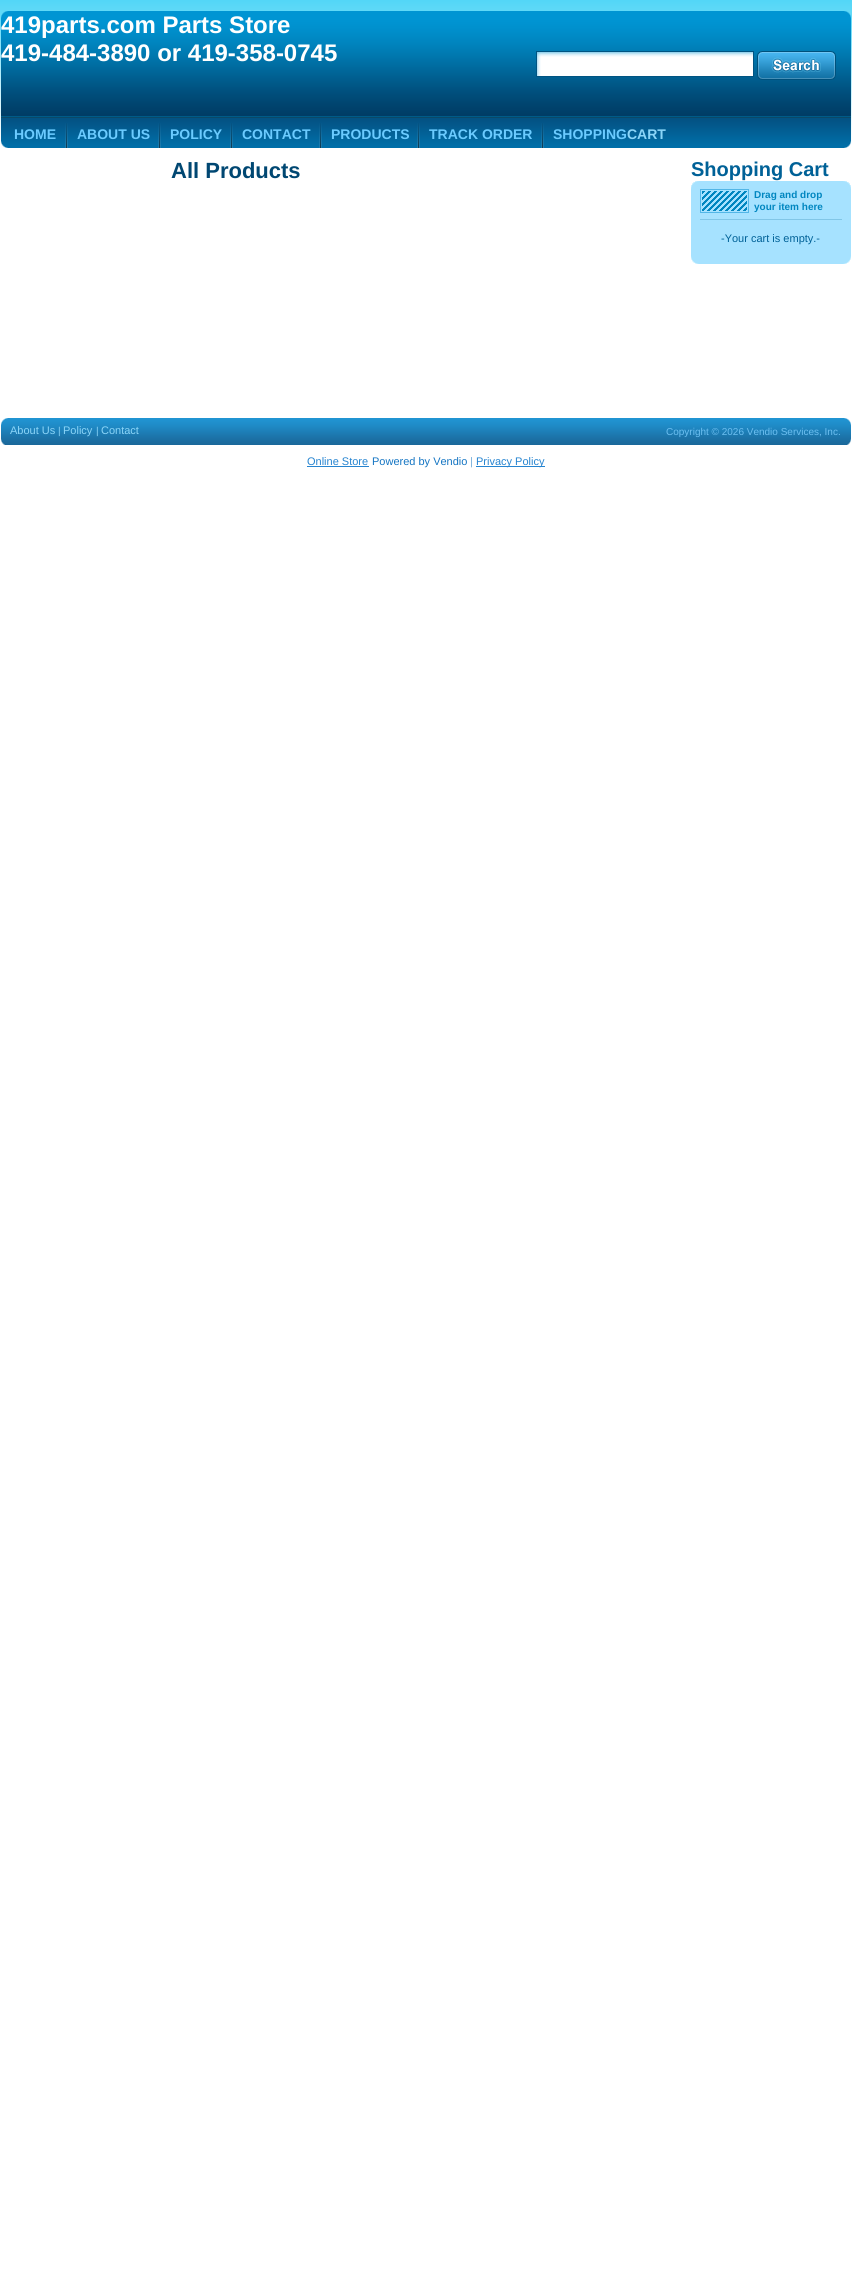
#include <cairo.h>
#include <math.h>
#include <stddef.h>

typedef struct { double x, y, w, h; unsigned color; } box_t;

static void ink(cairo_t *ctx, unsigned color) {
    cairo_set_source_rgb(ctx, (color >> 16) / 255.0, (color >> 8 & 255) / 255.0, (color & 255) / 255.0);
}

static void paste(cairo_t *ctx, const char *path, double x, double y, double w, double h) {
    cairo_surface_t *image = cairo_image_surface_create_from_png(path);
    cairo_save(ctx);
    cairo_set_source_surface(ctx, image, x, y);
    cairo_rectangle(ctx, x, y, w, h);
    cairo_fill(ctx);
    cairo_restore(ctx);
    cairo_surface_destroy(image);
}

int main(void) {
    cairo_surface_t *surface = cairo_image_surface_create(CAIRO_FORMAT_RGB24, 852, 2274);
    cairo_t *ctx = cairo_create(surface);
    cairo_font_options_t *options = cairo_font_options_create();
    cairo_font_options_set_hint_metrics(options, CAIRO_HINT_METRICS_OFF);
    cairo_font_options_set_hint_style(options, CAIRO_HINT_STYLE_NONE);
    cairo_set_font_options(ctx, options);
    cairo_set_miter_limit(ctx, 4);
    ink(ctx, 0xFFFFFF);
    cairo_paint(ctx);
    paste(ctx, "media/1.png", 0, 0, 852, 143);
    paste(ctx, "media/2.png", 8, 11, 836, 105);
    paste(ctx, "media/3.png", 1, 11, 7, 105);
    paste(ctx, "media/4.png", 844, 11, 7, 105);
    cairo_select_font_face(ctx, "Liberation Sans", CAIRO_FONT_SLANT_NORMAL, CAIRO_FONT_WEIGHT_BOLD);
    cairo_set_font_size(ctx, 24);
    ink(ctx, 0xFFFFFF);
    cairo_move_to(ctx, 1, 33);
    cairo_show_text(ctx, "419parts.com Parts Store");
    cairo_move_to(ctx, 1, 61);
    cairo_show_text(ctx, "419-484-3890 or 419-358-0745");
    paste(ctx, "media/5.png", 537, 52, 216, 24);
    cairo_rectangle(ctx, 536.5, 51.5, 217, 25);
    ink(ctx, 0x005482);
    cairo_set_line_width(ctx, 1);
    cairo_stroke(ctx);
    paste(ctx, "media/6.png", 757, 51, 79, 29);
    paste(ctx, "media/7.png", 1, 116, 850, 32);
    paste(ctx, "media/8.png", 1, 141, 7, 7);
    paste(ctx, "media/9.png", 844, 141, 7, 7);
    cairo_set_font_size(ctx, 14);
    ink(ctx, 0x6BCBFF);
    cairo_move_to(ctx, 14, 139);
    cairo_show_text(ctx, "HOME");
    paste(ctx, "media/10.png", 65, 123, 3, 25);
    cairo_move_to(ctx, 77, 139);
    cairo_show_text(ctx, "ABOUT US");
    paste(ctx, "media/10.png", 158, 123, 3, 25);
    cairo_move_to(ctx, 170, 139);
    cairo_show_text(ctx, "POLICY");
    paste(ctx, "media/10.png", 230, 123, 3, 25);
    cairo_move_to(ctx, 242, 139);
    cairo_show_text(ctx, "CONTACT");
    paste(ctx, "media/10.png", 319, 123, 3, 25);
    cairo_move_to(ctx, 331, 139);
    cairo_show_text(ctx, "PRODUCTS");
    paste(ctx, "media/10.png", 417, 123, 3, 25);
    cairo_move_to(ctx, 429, 139);
    cairo_show_text(ctx, "TRACK ORDER");
    paste(ctx, "media/10.png", 541, 123, 3, 25);
    cairo_move_to(ctx, 553, 139);
    cairo_show_text(ctx, "SHOPPING");
    ink(ctx, 0x8BD5F8);
    cairo_move_to(ctx, 627, 139);
    cairo_show_text(ctx, "CART");
    cairo_set_font_size(ctx, 22);
    ink(ctx, 0x004772);
    cairo_move_to(ctx, 171, 178);
    cairo_show_text(ctx, "All Products");
    cairo_set_font_size(ctx, 20);
    ink(ctx, 0x006197);
    cairo_move_to(ctx, 691, 176);
    cairo_show_text(ctx, "Shopping Cart");
    paste(ctx, "media/11.png", 691, 181, 8, 8);
    paste(ctx, "media/12.png", 843, 181, 8, 8);
    {
        static const box_t items[] = {
            {699, 181, 144, 8, 0xA6E2FF},
            {691, 189, 160, 67, 0xA6E2FF},
            {700, 219, 142, 1, 0x81C6E7},
        };
        for (size_t i = 0; i < sizeof items / sizeof *items; i++) {
            ink(ctx, items[i].color);
            cairo_rectangle(ctx, items[i].x, items[i].y, items[i].w, items[i].h);
            cairo_fill(ctx);
        }
    }
    paste(ctx, "media/13.png", 700, 189, 49, 24);
    cairo_set_font_size(ctx, 10);
    ink(ctx, 0x0086C0);
    cairo_move_to(ctx, 754, 198);
    cairo_show_text(ctx, "Drag and drop");
    cairo_move_to(ctx, 754, 210);
    cairo_show_text(ctx, "your item here");
    cairo_select_font_face(ctx, "Liberation Sans", CAIRO_FONT_SLANT_NORMAL, CAIRO_FONT_WEIGHT_NORMAL);
    cairo_set_font_size(ctx, 11);
    ink(ctx, 0x006197);
    cairo_move_to(ctx, 721, 242);
    cairo_show_text(ctx, "-Your cart is empty.-");
    paste(ctx, "media/14.png", 691, 256, 8, 8);
    paste(ctx, "media/15.png", 843, 256, 8, 8);
    ink(ctx, 0xA6E2FF);
    cairo_rectangle(ctx, 699, 256, 144, 8);
    cairo_fill(ctx);
    paste(ctx, "media/16.png", 8, 418, 836, 27);
    paste(ctx, "media/17.png", 1, 418, 7, 27);
    paste(ctx, "media/18.png", 844, 418, 7, 27);
    ink(ctx, 0x8BD5F8);
    cairo_move_to(ctx, 10, 434);
    cairo_show_text(ctx, "About Us");
    cairo_set_font_size(ctx, 10);
    cairo_move_to(ctx, 58, 434);
    cairo_show_text(ctx, "|");
    cairo_set_font_size(ctx, 11);
    cairo_move_to(ctx, 63, 434);
    cairo_show_text(ctx, "Policy");
    cairo_set_font_size(ctx, 10);
    cairo_move_to(ctx, 96, 434);
    cairo_show_text(ctx, "|");
    cairo_set_font_size(ctx, 11);
    cairo_move_to(ctx, 101, 434);
    cairo_show_text(ctx, "Contact");
    cairo_set_font_size(ctx, 10);
    ink(ctx, 0x6CBFF1);
    cairo_move_to(ctx, 666, 435);
    cairo_show_text(ctx, "Copyright © 2026 Vendio Services, Inc.");
    cairo_set_font_size(ctx, 11);
    ink(ctx, 0x2684D0);
    cairo_move_to(ctx, 307, 465);
    cairo_show_text(ctx, "Online Store");
    cairo_rectangle(ctx, 307, 466, 62, 1);
    cairo_fill(ctx);
    ink(ctx, 0x1374C2);
    cairo_move_to(ctx, 372, 465);
    cairo_show_text(ctx, "Powered by Vendio |");
    ink(ctx, 0x2684D0);
    cairo_rectangle(ctx, 476, 466, 69, 1);
    cairo_fill(ctx);
    cairo_move_to(ctx, 476, 465);
    cairo_show_text(ctx, "Privacy Policy");
    cairo_surface_write_to_png(surface, "image.png");
    cairo_font_options_destroy(options);
    cairo_destroy(ctx);
    cairo_surface_destroy(surface);
    return 0;
}
